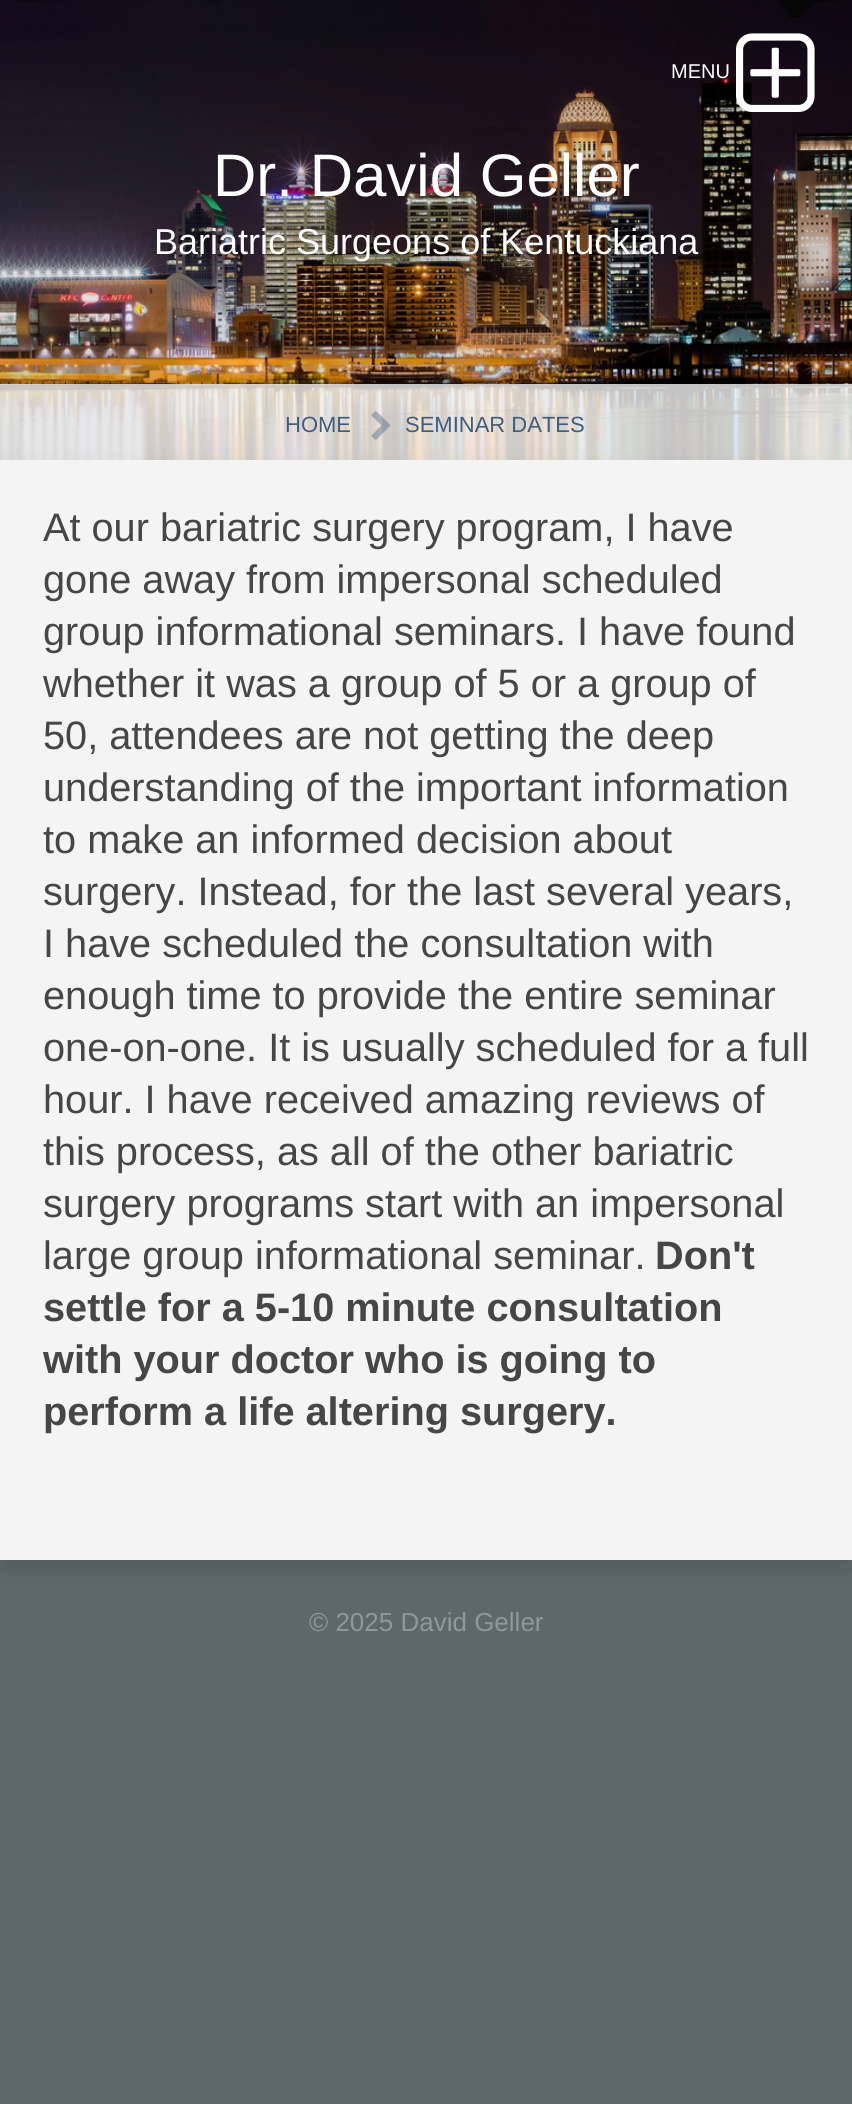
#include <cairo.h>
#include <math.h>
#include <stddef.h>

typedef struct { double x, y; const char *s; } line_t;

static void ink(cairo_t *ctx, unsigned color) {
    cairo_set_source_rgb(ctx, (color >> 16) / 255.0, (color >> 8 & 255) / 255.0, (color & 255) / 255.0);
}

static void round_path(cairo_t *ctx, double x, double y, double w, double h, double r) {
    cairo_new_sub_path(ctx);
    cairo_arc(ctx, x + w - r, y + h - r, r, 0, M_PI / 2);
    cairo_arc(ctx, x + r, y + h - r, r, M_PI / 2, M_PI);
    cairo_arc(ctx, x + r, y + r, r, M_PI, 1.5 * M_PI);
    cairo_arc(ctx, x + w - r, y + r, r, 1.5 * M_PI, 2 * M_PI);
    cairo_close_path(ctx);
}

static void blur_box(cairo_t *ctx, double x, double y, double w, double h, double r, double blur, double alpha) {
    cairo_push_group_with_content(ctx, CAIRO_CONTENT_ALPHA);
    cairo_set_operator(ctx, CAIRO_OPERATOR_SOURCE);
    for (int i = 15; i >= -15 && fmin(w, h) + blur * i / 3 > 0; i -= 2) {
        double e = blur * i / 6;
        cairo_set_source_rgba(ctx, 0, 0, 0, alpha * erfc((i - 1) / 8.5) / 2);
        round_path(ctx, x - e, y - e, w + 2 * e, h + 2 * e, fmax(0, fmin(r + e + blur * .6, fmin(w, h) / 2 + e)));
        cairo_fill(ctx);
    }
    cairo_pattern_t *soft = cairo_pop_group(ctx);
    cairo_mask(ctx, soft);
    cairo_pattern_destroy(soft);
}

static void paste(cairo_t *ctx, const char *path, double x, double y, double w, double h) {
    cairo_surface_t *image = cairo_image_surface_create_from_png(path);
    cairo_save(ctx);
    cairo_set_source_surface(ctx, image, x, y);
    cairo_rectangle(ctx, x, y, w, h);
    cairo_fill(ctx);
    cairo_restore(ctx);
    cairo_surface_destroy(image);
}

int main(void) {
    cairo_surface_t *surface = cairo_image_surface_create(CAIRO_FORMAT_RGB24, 852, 2104);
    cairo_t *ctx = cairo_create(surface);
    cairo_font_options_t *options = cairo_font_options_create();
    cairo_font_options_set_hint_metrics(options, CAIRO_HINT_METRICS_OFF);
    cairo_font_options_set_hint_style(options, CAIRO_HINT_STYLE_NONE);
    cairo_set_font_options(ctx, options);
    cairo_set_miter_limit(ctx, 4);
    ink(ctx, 0x5D6868);
    cairo_paint(ctx);
    paste(ctx, "media/2.png", 0, 0, 852, 460);
    cairo_select_font_face(ctx, "Liberation Sans", CAIRO_FONT_SLANT_NORMAL, CAIRO_FONT_WEIGHT_NORMAL);
    cairo_set_font_size(ctx, 20);
    ink(ctx, 0xFFFFFF);
    cairo_move_to(ctx, 671, 78);
    cairo_show_text(ctx, "MENU");
    paste(ctx, "media/1.png", 736, 33, 79, 79);
    cairo_set_font_size(ctx, 60);
    cairo_move_to(ctx, 213, 196);
    cairo_show_text(ctx, "Dr. David Geller");
    cairo_set_font_size(ctx, 36);
    cairo_move_to(ctx, 154, 254);
    cairo_show_text(ctx, "Bariatric Surgeons of Kentuckiana");
    cairo_save(ctx);
    cairo_rectangle(ctx, 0, 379, 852, 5);
    cairo_clip(ctx);
    ink(ctx, 0x000000);
    blur_box(ctx, 0, 388, 852, 176, 0, 6, 0.3);
    cairo_restore(ctx);
    cairo_set_source_rgba(ctx, 0.957, 0.957, 0.957, 0.8);
    cairo_rectangle(ctx, 0, 384, 852, 76);
    cairo_fill(ctx);
    cairo_set_font_size(ctx, 22);
    ink(ctx, 0x3F5D7C);
    cairo_move_to(ctx, 285, 432);
    cairo_show_text(ctx, "HOME");
    paste(ctx, "media/3.png", 371, 411, 19, 29);
    cairo_move_to(ctx, 405, 432);
    cairo_show_text(ctx, "SEMINAR DATES");
    ink(ctx, 0x000000);
    blur_box(ctx, 0, 470, 852, 1100, 0, 12, 0.11);
    ink(ctx, 0xF4F4F4);
    cairo_rectangle(ctx, 0, 460, 852, 1100);
    cairo_fill(ctx);
    cairo_set_font_size(ctx, 39.7);
    ink(ctx, 0x464646);
    {
        static const line_t items[] = {
            {43, 541, "At our bariatric surgery program, I have"},
            {43, 593, "gone away from impersonal scheduled"},
            {43, 645, "group informational seminars. I have found"},
            {43, 697, "whether it was a group of 5 or a group of"},
            {43, 749, "50, attendees are not getting the deep"},
            {43, 801, "understanding of the important information"},
            {43, 853, "to make an informed decision about"},
            {43, 905, "surgery. Instead, for the last several years,"},
            {43, 957, "I have scheduled the consultation with"},
            {43, 1009, "enough time to provide the entire seminar"},
            {43, 1061, "one-on-one. It is usually scheduled for a full"},
            {43, 1113, "hour. I have received amazing reviews of"},
            {43, 1165, "this process, as all of the other bariatric"},
            {43, 1217, "surgery programs start with an impersonal"},
            {43, 1269, "large group informational seminar."},
        };
        for (size_t i = 0; i < sizeof items / sizeof *items; i++) {
            cairo_move_to(ctx, items[i].x, items[i].y);
            cairo_show_text(ctx, items[i].s);
        }
    }
    cairo_select_font_face(ctx, "Liberation Sans", CAIRO_FONT_SLANT_NORMAL, CAIRO_FONT_WEIGHT_BOLD);
    {
        static const line_t items[] = {
            {655, 1269, "Don't"},
            {43, 1321, "settle for a 5-10 minute consultation"},
            {43, 1373, "with your doctor who is going to"},
            {43, 1425, "perform a life altering surgery."},
        };
        for (size_t i = 0; i < sizeof items / sizeof *items; i++) {
            cairo_move_to(ctx, items[i].x, items[i].y);
            cairo_show_text(ctx, items[i].s);
        }
    }
    cairo_select_font_face(ctx, "Liberation Sans", CAIRO_FONT_SLANT_NORMAL, CAIRO_FONT_WEIGHT_NORMAL);
    cairo_set_font_size(ctx, 26);
    ink(ctx, 0x8E9998);
    cairo_move_to(ctx, 309, 1631);
    cairo_show_text(ctx, "© 2025 David Geller");
    cairo_surface_write_to_png(surface, "image.png");
    cairo_font_options_destroy(options);
    cairo_destroy(ctx);
    cairo_surface_destroy(surface);
    return 0;
}
